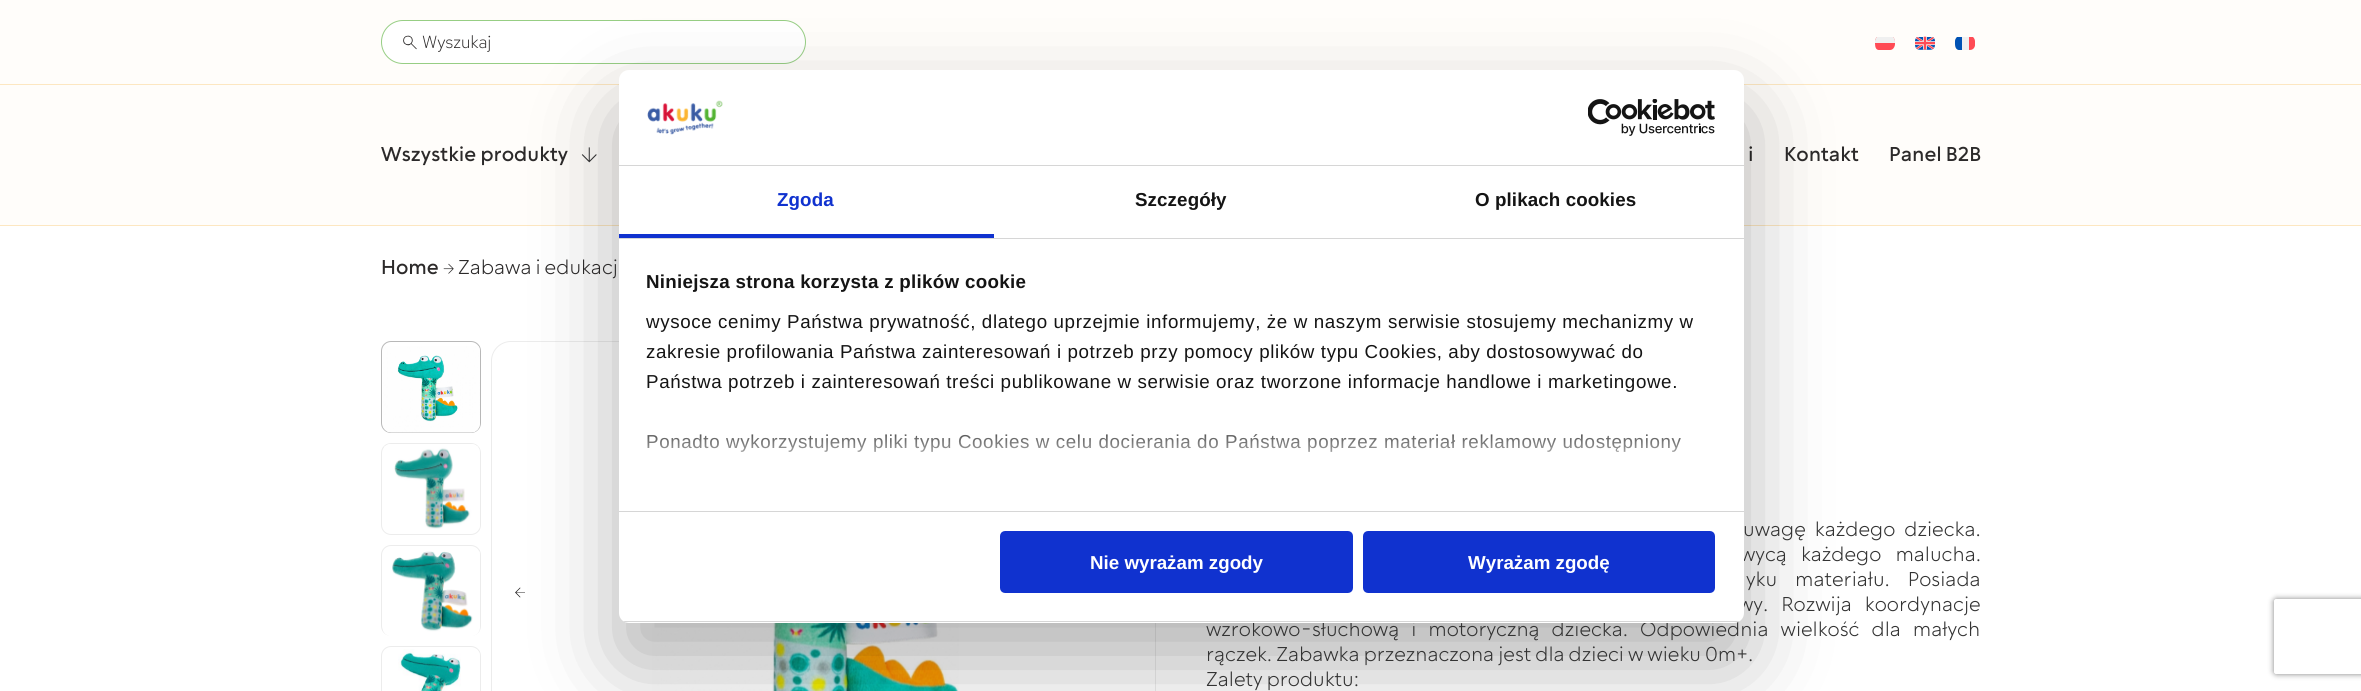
#include <cairo.h>
#include <math.h>
#include <stddef.h>

typedef struct { double x, y; const char *s; } line_t;
typedef struct { double x, y, w, h; unsigned color; } box_t;

static void ink(cairo_t *ctx, unsigned color) {
    cairo_set_source_rgb(ctx, (color >> 16) / 255.0, (color >> 8 & 255) / 255.0, (color & 255) / 255.0);
}

static void write_spaced(cairo_t *ctx, double x, double y, const char *s, double letter, double word) {
    cairo_move_to(ctx, x, y);
    while (*s) {
        char ch[5] = {0};
        int n = 0;
        do ch[n++] = *s++; while ((*s & 0xC0) == 0x80);
        cairo_show_text(ctx, ch);
        cairo_rel_move_to(ctx, letter + word * (*ch == ' '), 0);
    }
}

static void round_path(cairo_t *ctx, double x, double y, double w, double h, double r) {
    cairo_new_sub_path(ctx);
    cairo_arc(ctx, x + w - r, y + h - r, r, 0, M_PI / 2);
    cairo_arc(ctx, x + r, y + h - r, r, M_PI / 2, M_PI);
    cairo_arc(ctx, x + r, y + r, r, M_PI, 1.5 * M_PI);
    cairo_arc(ctx, x + w - r, y + r, r, 1.5 * M_PI, 2 * M_PI);
    cairo_close_path(ctx);
}

static void blur_box(cairo_t *ctx, double x, double y, double w, double h, double r, double blur, double alpha) {
    cairo_push_group_with_content(ctx, CAIRO_CONTENT_ALPHA);
    cairo_set_operator(ctx, CAIRO_OPERATOR_SOURCE);
    for (int i = 15; i >= -15 && fmin(w, h) + blur * i / 3 > 0; i -= 2) {
        double e = blur * i / 6;
        cairo_set_source_rgba(ctx, 0, 0, 0, alpha * erfc((i - 1) / 8.5) / 2);
        round_path(ctx, x - e, y - e, w + 2 * e, h + 2 * e, fmax(0, fmin(r + e + blur * .6, fmin(w, h) / 2 + e)));
        cairo_fill(ctx);
    }
    cairo_pattern_t *soft = cairo_pop_group(ctx);
    cairo_mask(ctx, soft);
    cairo_pattern_destroy(soft);
}

static void paste(cairo_t *ctx, const char *path, double x, double y, double w, double h) {
    cairo_surface_t *image = cairo_image_surface_create_from_png(path);
    cairo_save(ctx);
    cairo_set_source_surface(ctx, image, x, y);
    cairo_rectangle(ctx, x, y, w, h);
    cairo_fill(ctx);
    cairo_restore(ctx);
    cairo_surface_destroy(image);
}

int main(void) {
    cairo_surface_t *surface = cairo_image_surface_create(CAIRO_FORMAT_RGB24, 2361, 691);
    cairo_t *ctx = cairo_create(surface);
    cairo_font_options_t *options = cairo_font_options_create();
    cairo_font_options_set_hint_metrics(options, CAIRO_HINT_METRICS_OFF);
    cairo_font_options_set_hint_style(options, CAIRO_HINT_STYLE_NONE);
    cairo_set_font_options(ctx, options);
    cairo_set_miter_limit(ctx, 4);
    cairo_pattern_t *gradient;
    ink(ctx, 0xFFFFFF);
    cairo_paint(ctx);
    ink(ctx, 0xFFFDFA);
    cairo_rectangle(ctx, 0, 0, 2361, 84);
    cairo_fill(ctx);
    ink(ctx, 0xFFFFFF);
    round_path(ctx, 381.5, 20.5, 424, 43, 21.5);
    cairo_fill_preserve(ctx);
    ink(ctx, 0x97CE84);
    cairo_set_line_width(ctx, 1);
    cairo_stroke(ctx);
    paste(ctx, "media/1.png", 403, 35, 14, 15);
    cairo_select_font_face(ctx, "Red Hat Text Light", CAIRO_FONT_SLANT_NORMAL, CAIRO_FONT_WEIGHT_NORMAL);
    cairo_set_font_size(ctx, 17.5);
    ink(ctx, 0x2C2A2A);
    cairo_move_to(ctx, 422, 48);
    cairo_show_text(ctx, "Wyszukaj");
    cairo_save(ctx);
    cairo_rectangle(ctx, 1875, 36, 20, 14);
    cairo_clip(ctx);
    ink(ctx, 0xFF4B55);
    cairo_new_path(ctx);
    cairo_move_to(ctx, 1875, 41);
    cairo_curve_to(ctx, 1875, 43.5, 1874.5, 49.5, 1878.5, 50);
    cairo_line_to(ctx, 1883, 50);
    cairo_curve_to(ctx, 1885, 50, 1890.5, 50.5, 1892, 49.5);
    cairo_curve_to(ctx, 1896, 47.5, 1896, 39.5, 1893, 37);
    cairo_line_to(ctx, 1877, 37);
    cairo_curve_to(ctx, 1876, 38, 1875, 39.5, 1875, 41);
    cairo_close_path(ctx);
    cairo_fill(ctx);
    cairo_restore(ctx);
    ink(ctx, 0xF0F0F0);
    cairo_new_path(ctx);
    cairo_move_to(ctx, 1875, 41);
    cairo_line_to(ctx, 1875, 43);
    cairo_line_to(ctx, 1895, 43);
    cairo_curve_to(ctx, 1895, 40.5, 1895, 38.5, 1893, 37);
    cairo_line_to(ctx, 1877, 37);
    cairo_curve_to(ctx, 1876, 38, 1875, 39.5, 1875, 41);
    cairo_close_path(ctx);
    cairo_fill(ctx);
    paste(ctx, "media/2.png", 1915, 36, 20, 14);
    cairo_save(ctx);
    cairo_rectangle(ctx, 1955, 36, 20, 14);
    cairo_clip(ctx);
    cairo_new_path(ctx);
    cairo_move_to(ctx, 1955, 41);
    cairo_curve_to(ctx, 1955, 43.5, 1954.5, 49.5, 1958.5, 50);
    cairo_line_to(ctx, 1963, 50);
    cairo_curve_to(ctx, 1965, 50, 1970.5, 50.5, 1972, 49.5);
    cairo_curve_to(ctx, 1976, 47.5, 1976, 39.5, 1973, 37);
    cairo_line_to(ctx, 1957, 37);
    cairo_curve_to(ctx, 1956, 38, 1955, 39.5, 1955, 41);
    cairo_close_path(ctx);
    cairo_fill(ctx);
    cairo_restore(ctx);
    ink(ctx, 0x0052B4);
    cairo_new_path(ctx);
    cairo_move_to(ctx, 1955, 41);
    cairo_curve_to(ctx, 1955, 44, 1954.5, 49, 1958.5, 50);
    cairo_line_to(ctx, 1962, 50);
    cairo_line_to(ctx, 1962, 37);
    cairo_line_to(ctx, 1957, 37);
    cairo_curve_to(ctx, 1956, 38, 1955, 39.5, 1955, 41);
    cairo_close_path(ctx);
    cairo_fill(ctx);
    cairo_save(ctx);
    cairo_rectangle(ctx, 1955, 36, 20, 14);
    cairo_clip(ctx);
    ink(ctx, 0xFF4B55);
    cairo_new_path(ctx);
    cairo_move_to(ctx, 1969, 37);
    cairo_line_to(ctx, 1973, 37);
    cairo_curve_to(ctx, 1976, 39.5, 1976, 47, 1973, 49);
    cairo_curve_to(ctx, 1971.5, 50, 1970.5, 50, 1969, 50);
    cairo_close_path(ctx);
    cairo_fill(ctx);
    cairo_restore(ctx);
    {
        static const box_t items[] = {
            {0, 85, 2361, 140, 0xFFFDFA},
            {0, 84, 2361, 1, 0xFDE7C1},
            {0, 225, 2361, 1, 0xFDE7C1},
        };
        for (size_t i = 0; i < sizeof items / sizeof *items; i++) {
            ink(ctx, items[i].color);
            cairo_rectangle(ctx, items[i].x, items[i].y, items[i].w, items[i].h);
            cairo_fill(ctx);
        }
    }
    cairo_select_font_face(ctx, "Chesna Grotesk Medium", CAIRO_FONT_SLANT_NORMAL, CAIRO_FONT_WEIGHT_NORMAL);
    cairo_set_font_size(ctx, 20);
    ink(ctx, 0x2C2A2A);
    cairo_move_to(ctx, 381, 161);
    cairo_show_text(ctx, "Wszystkie produkty");
    paste(ctx, "media/3.png", 581, 147, 16, 16);
    {
        static const line_t items[] = {
            {1748, 161, "i"},
            {1784, 161, "Kontakt"},
            {1889, 161, "Panel B2B"},
        };
        for (size_t i = 0; i < sizeof items / sizeof *items; i++) {
            cairo_move_to(ctx, items[i].x, items[i].y);
            cairo_show_text(ctx, items[i].s);
        }
    }
    round_path(ctx, 491.5, 341.5, 664, 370, 19.5);
    ink(ctx, 0xECECEC);
    cairo_stroke(ctx);
    paste(ctx, "media/11.png", 515, 587, 10, 11);
    paste(ctx, "media/12.png", 652, 623, 307, 68);
    ink(ctx, 0x000000);
    blur_box(ctx, 619, 110, 1125, 553, 10, 42.5, 0.3);
    cairo_select_font_face(ctx, "Chesna Grotesk Light", CAIRO_FONT_SLANT_NORMAL, CAIRO_FONT_WEIGHT_NORMAL);
    ink(ctx, 0x333333);
    write_spaced(ctx, 1740, 561, "wycą każdego malucha.", 0, 10);
    write_spaced(ctx, 1738, 611, "wy. Rozwija koordynacje", 0, 9);
    write_spaced(ctx, 1206, 636, "wzrokowo-słuchową i motoryczną dziecka. Odpowiednia wielkość dla małych", 0, 8);
    ink(ctx, 0xFFFFFF);
    round_path(ctx, 619, 70, 1125, 553, 10);
    cairo_fill(ctx);
    ink(ctx, 0xD6D6D6);
    cairo_rectangle(ctx, 619, 165, 1125, 1);
    cairo_fill(ctx);
    paste(ctx, "media/4.png", 647, 100, 76, 35);
    paste(ctx, "media/5.png", 1588, 99, 127, 37);
    cairo_rectangle(ctx, 619, 238, 1125, 1);
    cairo_fill(ctx);
    ink(ctx, 0x1032CF);
    cairo_rectangle(ctx, 619, 234, 375, 4);
    cairo_fill(ctx);
    cairo_select_font_face(ctx, "Liberation Sans", CAIRO_FONT_SLANT_NORMAL, CAIRO_FONT_WEIGHT_BOLD);
    cairo_set_font_size(ctx, 18.75);
    write_spaced(ctx, 777, 206, "Zgoda", 0.1, 0);
    ink(ctx, 0x141414);
    write_spaced(ctx, 1135, 206, "Szczegóły", 0.1, 0);
    write_spaced(ctx, 1475, 206, "O plikach cookies", 0.1, 0);
    ink(ctx, 0xD6D6D6);
    cairo_rectangle(ctx, 619, 511, 1125, 1);
    cairo_fill(ctx);
    ink(ctx, 0x141414);
    write_spaced(ctx, 646, 288, "Niniejsza strona korzysta z plików cookie", 0.3, 0);
    cairo_select_font_face(ctx, "Liberation Sans", CAIRO_FONT_SLANT_NORMAL, CAIRO_FONT_WEIGHT_NORMAL);
    {
        static const line_t items[] = {
            {646, 328, "wysoce cenimy Państwa prywatność, dlatego uprzejmie informujemy, że w naszym serwisie stosujemy mechanizmy w"},
            {646, 358, "zakresie profilowania Państwa zainteresowań i potrzeb przy pomocy plików typu Cookies, aby dostosowywać do"},
            {646, 388, "Państwa potrzeb i zainteresowań treści publikowane w serwisie oraz tworzone informacje handlowe i marketingowe."},
            {646, 448, "Ponadto wykorzystujemy pliki typu Cookies w celu docierania do Państwa poprzez materiał reklamowy udostępniony"},
        };
        for (size_t i = 0; i < sizeof items / sizeof *items; i++) {
            write_spaced(ctx, items[i].x, items[i].y, items[i].s, 0.62, 0);
        }
    }
    gradient = cairo_pattern_create_linear(1168, 511, 1168, 417);
    cairo_pattern_add_color_stop_rgba(gradient, 0, 1, 1, 1, 1);
    cairo_pattern_add_color_stop_rgba(gradient, 0.5, 1, 1, 1, 0.8);
    cairo_pattern_add_color_stop_rgba(gradient, 1, 1, 1, 1, 0);
    cairo_set_source(ctx, gradient);
    cairo_pattern_destroy(gradient);
    cairo_rectangle(ctx, 647, 434, 1035, 18);
    cairo_fill(ctx);
    cairo_save(ctx);
    round_path(ctx, 619, 70, 1125, 553, 10);
    cairo_clip(ctx);
    ink(ctx, 0xD6D6D6);
    cairo_rectangle(ctx, 619, 621, 1125, 1);
    cairo_fill(ctx);
    cairo_restore(ctx);
    ink(ctx, 0x1032CF);
    round_path(ctx, 1001.5, 532.5, 350, 59, 3.5);
    cairo_fill_preserve(ctx);
    cairo_set_line_width(ctx, 3);
    cairo_stroke(ctx);
    cairo_select_font_face(ctx, "Liberation Sans", CAIRO_FONT_SLANT_NORMAL, CAIRO_FONT_WEIGHT_BOLD);
    ink(ctx, 0xFFFFFF);
    cairo_move_to(ctx, 1090, 569);
    cairo_show_text(ctx, "Nie wyrażam zgody");
    ink(ctx, 0x1032CF);
    round_path(ctx, 1364.5, 532.5, 349, 59, 3.5);
    cairo_fill_preserve(ctx);
    cairo_stroke(ctx);
    ink(ctx, 0xFFFFFF);
    cairo_move_to(ctx, 1468, 569);
    cairo_show_text(ctx, "Wyrażam zgodę");
    cairo_select_font_face(ctx, "Chesna Grotesk Medium", CAIRO_FONT_SLANT_NORMAL, CAIRO_FONT_WEIGHT_NORMAL);
    cairo_set_font_size(ctx, 20);
    ink(ctx, 0x2C2A2A);
    cairo_move_to(ctx, 381, 274);
    cairo_show_text(ctx, "Home");
    paste(ctx, "media/6.png", 443, 263, 11, 11);
    cairo_select_font_face(ctx, "Chesna Grotesk Light", CAIRO_FONT_SLANT_NORMAL, CAIRO_FONT_WEIGHT_NORMAL);
    cairo_move_to(ctx, 458, 274);
    cairo_show_text(ctx, "Zabawa i edukacj");
    round_path(ctx, 381.5, 341.5, 99, 91, 9.5);
    ink(ctx, 0xB8B8B8);
    cairo_set_line_width(ctx, 1);
    cairo_stroke(ctx);
    paste(ctx, "media/7.png", 383, 346, 97, 87);
    round_path(ctx, 381.5, 443.5, 99, 91, 9.5);
    ink(ctx, 0xECECEC);
    cairo_stroke(ctx);
    paste(ctx, "media/8.png", 384, 444, 96, 85);
    round_path(ctx, 381.5, 545.5, 99, 90, 9.5);
    cairo_stroke(ctx);
    paste(ctx, "media/9.png", 383, 551, 97, 85);
    round_path(ctx, 381.5, 646.5, 99, 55, 9.5);
    cairo_stroke(ctx);
    paste(ctx, "media/10.png", 398, 649, 82, 42);
    ink(ctx, 0x333333);
    write_spaced(ctx, 1743, 536, "uwagę każdego dziecka.", 0, 5);
    write_spaced(ctx, 1746, 586, "yku materiału. Posiada", 0, 14);
    cairo_move_to(ctx, 1206, 661);
    cairo_show_text(ctx, "rączek. Zabawka przeznaczona jest dla dzieci w wieku 0m+.");
    cairo_move_to(ctx, 1206, 686);
    cairo_show_text(ctx, "Zalety produktu:");
    cairo_save(ctx);
    cairo_set_fill_rule(ctx, CAIRO_FILL_RULE_EVEN_ODD);
    cairo_new_path(ctx);
    cairo_move_to(ctx, 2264, 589);
    cairo_line_to(ctx, 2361, 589);
    cairo_line_to(ctx, 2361, 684);
    cairo_line_to(ctx, 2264, 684);
    cairo_close_path(ctx);
    cairo_move_to(ctx, 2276.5, 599);
    cairo_line_to(ctx, 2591.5, 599);
    cairo_curve_to(ctx, 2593, 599, 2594, 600, 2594, 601.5);
    cairo_line_to(ctx, 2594, 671.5);
    cairo_curve_to(ctx, 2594, 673, 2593, 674, 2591.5, 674);
    cairo_line_to(ctx, 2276.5, 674);
    cairo_curve_to(ctx, 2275, 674, 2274, 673, 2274, 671.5);
    cairo_line_to(ctx, 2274, 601.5);
    cairo_curve_to(ctx, 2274, 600, 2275, 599, 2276.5, 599);
    cairo_close_path(ctx);
    cairo_clip(ctx);
    ink(ctx, 0x808080);
    blur_box(ctx, 2274, 599, 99, 75, 2.5, 3, 1);
    cairo_restore(ctx);
    cairo_surface_write_to_png(surface, "image.png");
    cairo_font_options_destroy(options);
    cairo_destroy(ctx);
    cairo_surface_destroy(surface);
    return 0;
}
